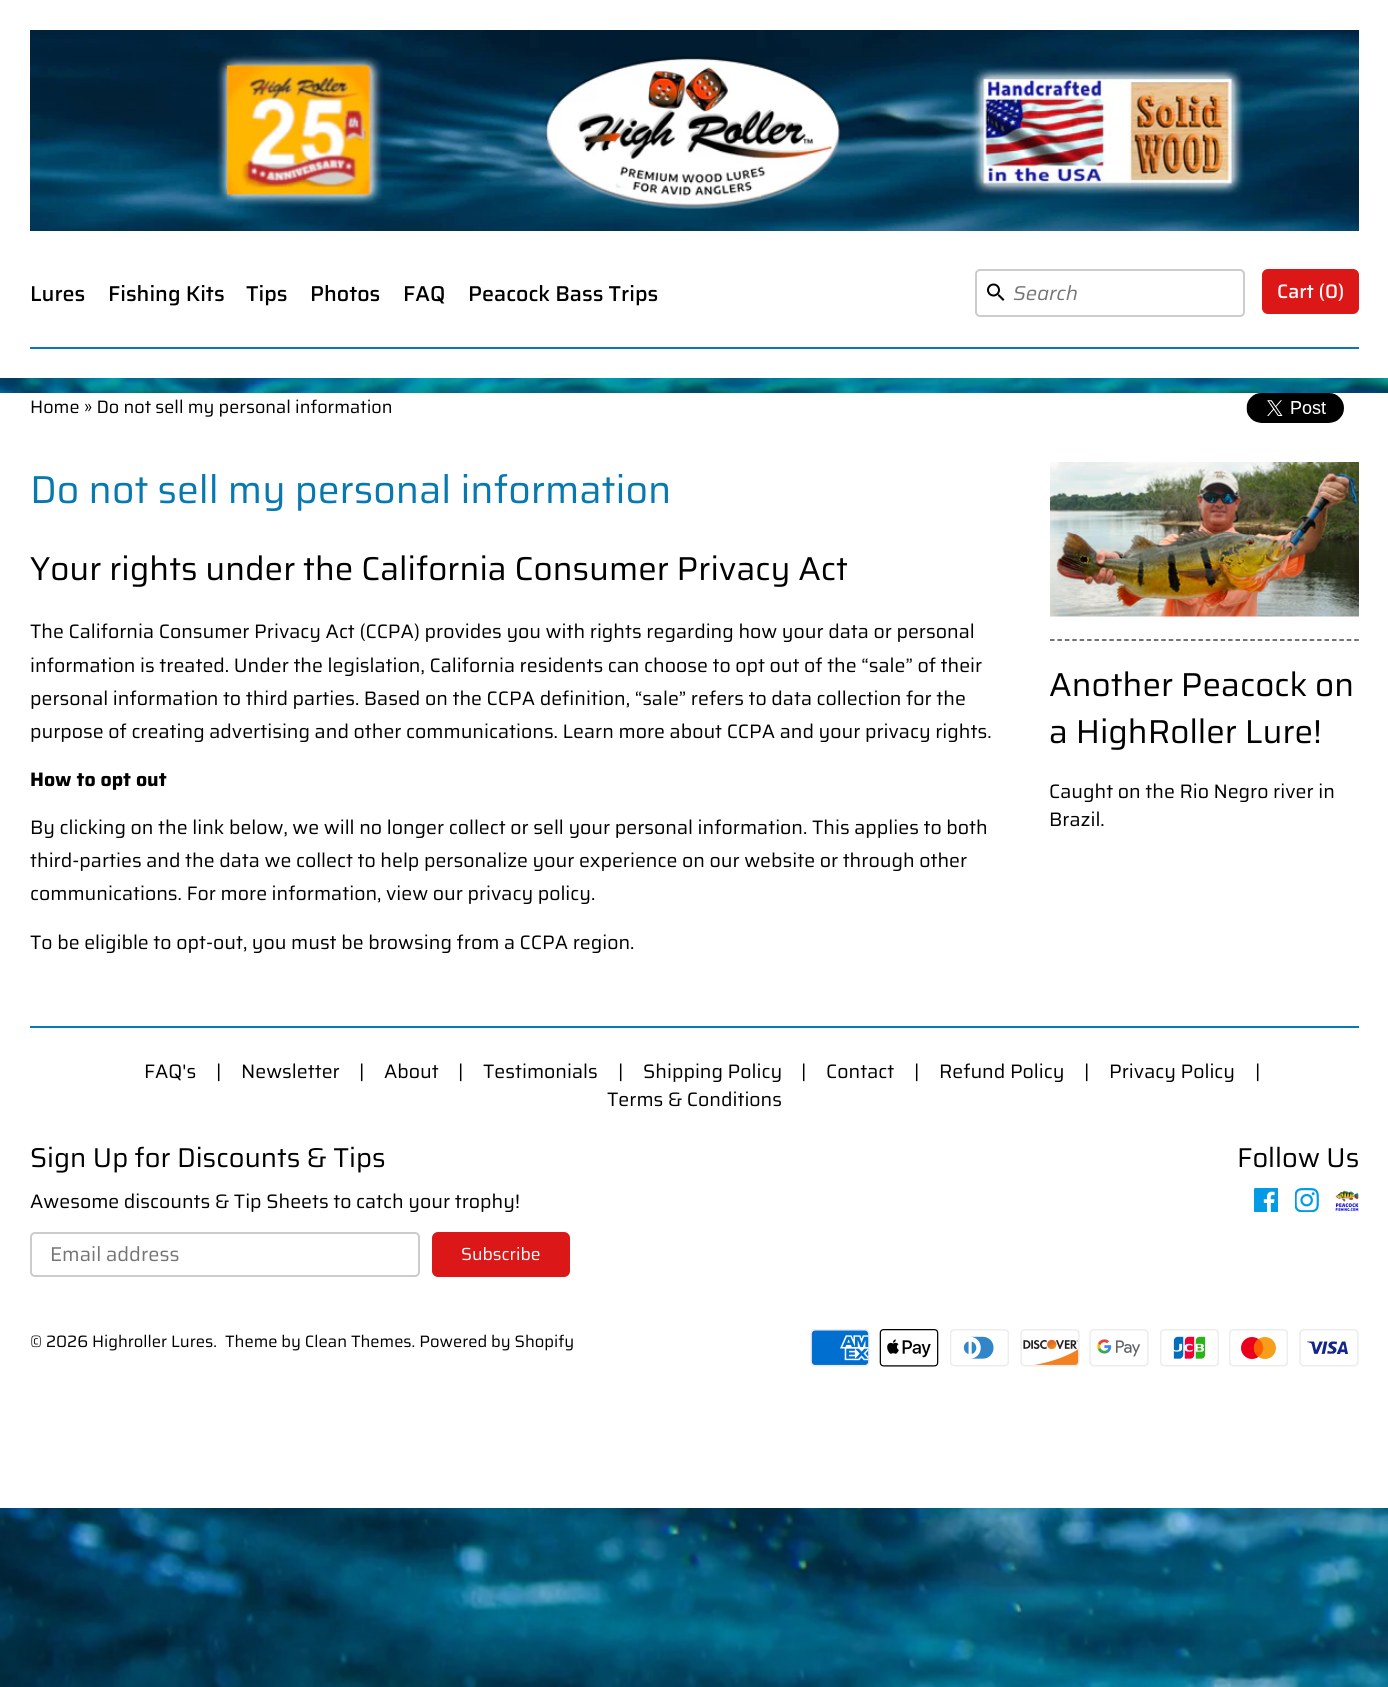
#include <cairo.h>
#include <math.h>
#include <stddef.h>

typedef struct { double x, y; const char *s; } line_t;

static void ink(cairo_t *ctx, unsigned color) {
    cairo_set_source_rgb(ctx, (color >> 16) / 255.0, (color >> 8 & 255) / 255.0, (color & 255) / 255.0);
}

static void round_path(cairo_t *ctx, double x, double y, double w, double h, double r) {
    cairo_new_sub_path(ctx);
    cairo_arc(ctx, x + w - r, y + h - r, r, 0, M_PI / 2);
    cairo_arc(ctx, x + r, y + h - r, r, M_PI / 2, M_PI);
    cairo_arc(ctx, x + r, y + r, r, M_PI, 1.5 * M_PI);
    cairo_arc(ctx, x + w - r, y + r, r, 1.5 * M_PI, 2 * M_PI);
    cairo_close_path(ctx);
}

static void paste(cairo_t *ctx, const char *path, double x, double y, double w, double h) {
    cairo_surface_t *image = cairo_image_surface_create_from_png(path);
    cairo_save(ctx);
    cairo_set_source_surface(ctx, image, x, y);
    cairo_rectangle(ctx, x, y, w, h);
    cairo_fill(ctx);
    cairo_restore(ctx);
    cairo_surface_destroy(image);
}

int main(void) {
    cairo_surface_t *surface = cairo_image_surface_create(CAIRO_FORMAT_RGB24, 1388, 1687);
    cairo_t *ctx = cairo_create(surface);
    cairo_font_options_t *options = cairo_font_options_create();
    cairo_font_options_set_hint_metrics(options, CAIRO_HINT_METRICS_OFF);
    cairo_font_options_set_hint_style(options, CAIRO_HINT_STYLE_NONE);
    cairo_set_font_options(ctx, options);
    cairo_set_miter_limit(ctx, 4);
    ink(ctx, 0xFFFFFF);
    cairo_paint(ctx);
    paste(ctx, "media/1.png", 0, 378, 1388, 1309);
    paste(ctx, "media/2.png", 30, 30, 1329, 201);
    ink(ctx, 0x0879B0);
    cairo_rectangle(ctx, 30, 347, 1329, 2);
    cairo_fill(ctx);
    cairo_select_font_face(ctx, "Saira Medium", CAIRO_FONT_SLANT_NORMAL, CAIRO_FONT_WEIGHT_NORMAL);
    cairo_set_font_size(ctx, 21.5);
    ink(ctx, 0x000000);
    {
        static const line_t items[] = {
            {30, 301, "Lures"},
            {108, 301, "Fishing Kits"},
            {246, 301, "Tips"},
            {310, 301, "Photos"},
            {403, 301, "FAQ"},
            {468, 301, "Peacock Bass Trips"},
        };
        for (size_t i = 0; i < sizeof items / sizeof *items; i++) {
            cairo_move_to(ctx, items[i].x, items[i].y);
            cairo_show_text(ctx, items[i].s);
        }
    }
    round_path(ctx, 976, 270, 268, 46, 4);
    ink(ctx, 0xCCCCCC);
    cairo_stroke(ctx);
    paste(ctx, "media/3.png", 987, 283, 18, 18);
    cairo_select_font_face(ctx, "Saira", CAIRO_FONT_SLANT_ITALIC, CAIRO_FONT_WEIGHT_NORMAL);
    cairo_set_font_size(ctx, 20);
    ink(ctx, 0x757575);
    cairo_move_to(ctx, 1013, 300);
    cairo_show_text(ctx, "Search");
    ink(ctx, 0xDC1717);
    round_path(ctx, 1262, 269, 97, 45, 6);
    cairo_fill(ctx);
    cairo_select_font_face(ctx, "Saira Medium", CAIRO_FONT_SLANT_NORMAL, CAIRO_FONT_WEIGHT_NORMAL);
    cairo_set_font_size(ctx, 19.5);
    ink(ctx, 0xFFFFFF);
    cairo_move_to(ctx, 1277, 298);
    cairo_show_text(ctx, "Cart (0)");
    cairo_rectangle(ctx, 0, 393, 1388, 1115);
    cairo_fill(ctx);
    cairo_select_font_face(ctx, "Saira", CAIRO_FONT_SLANT_NORMAL, CAIRO_FONT_WEIGHT_NORMAL);
    cairo_set_font_size(ctx, 18);
    ink(ctx, 0x000000);
    cairo_move_to(ctx, 30, 413);
    cairo_show_text(ctx, "Home » Do not sell my personal information");
    paste(ctx, "media/4.png", 1246, 393, 98, 30);
    cairo_set_font_size(ctx, 39);
    ink(ctx, 0x0879B0);
    cairo_move_to(ctx, 30, 503);
    cairo_show_text(ctx, "Do not sell my personal information");
    cairo_set_font_size(ctx, 33.15);
    ink(ctx, 0x000000);
    cairo_move_to(ctx, 30, 580);
    cairo_show_text(ctx, "Your rights under the California Consumer Privacy Act");
    cairo_set_font_size(ctx, 19.5);
    {
        static const line_t items[] = {
            {30, 638, "The California Consumer Privacy Act (CCPA) provides you with rights regarding how your data or personal"},
            {30, 672, "information is treated. Under the legislation, California residents can choose to opt out of the “sale” of their"},
            {30, 705, "personal information to third parties. Based on the CCPA definition, “sale” refers to data collection for the"},
            {30, 738, "purpose of creating advertising and other communications. Learn more about CCPA and your privacy rights."},
        };
        for (size_t i = 0; i < sizeof items / sizeof *items; i++) {
            cairo_move_to(ctx, items[i].x, items[i].y);
            cairo_show_text(ctx, items[i].s);
        }
    }
    cairo_select_font_face(ctx, "Saira", CAIRO_FONT_SLANT_NORMAL, CAIRO_FONT_WEIGHT_BOLD);
    cairo_move_to(ctx, 30, 786);
    cairo_show_text(ctx, "How to opt out");
    cairo_select_font_face(ctx, "Saira", CAIRO_FONT_SLANT_NORMAL, CAIRO_FONT_WEIGHT_NORMAL);
    {
        static const line_t items[] = {
            {30, 834, "By clicking on the link below, we will no longer collect or sell your personal information. This applies to both"},
            {30, 867, "third-parties and the data we collect to help personalize your experience on our website or through other"},
            {30, 900, "communications. For more information, view our privacy policy."},
            {30, 949, "To be eligible to opt-out, you must be browsing from a CCPA region."},
        };
        for (size_t i = 0; i < sizeof items / sizeof *items; i++) {
            cairo_move_to(ctx, items[i].x, items[i].y);
            cairo_show_text(ctx, items[i].s);
        }
    }
    cairo_new_path(ctx);
    cairo_move_to(ctx, 1050, 640);
    cairo_line_to(ctx, 1359, 640);
    ink(ctx, 0x464646);
    cairo_set_line_width(ctx, 1.5);
    cairo_set_dash(ctx, (double[]){4.5, 2.92}, 2, 0);
    cairo_stroke(ctx);
    paste(ctx, "media/5.png", 1050, 462, 309, 155);
    cairo_set_font_size(ctx, 33.15);
    ink(ctx, 0x000000);
    cairo_move_to(ctx, 1049, 696);
    cairo_show_text(ctx, "Another Peacock on");
    cairo_move_to(ctx, 1049, 743);
    cairo_show_text(ctx, "a HighRoller Lure!");
    cairo_set_font_size(ctx, 19.5);
    cairo_move_to(ctx, 1049, 798);
    cairo_show_text(ctx, "Caught on the Rio Negro river in");
    cairo_move_to(ctx, 1049, 826);
    cairo_show_text(ctx, "Brazil.");
    ink(ctx, 0x0879B0);
    cairo_rectangle(ctx, 30, 1026, 1329, 2);
    cairo_fill(ctx);
    ink(ctx, 0x000000);
    {
        static const line_t items[] = {
            {144, 1078, "FAQ's"},
            {216, 1078, "|"},
            {241, 1078, "Newsletter"},
            {359, 1078, "|"},
            {384, 1078, "About"},
            {458, 1078, "|"},
            {483, 1078, "Testimonials"},
            {618, 1078, "|"},
            {643, 1078, "Shipping Policy"},
            {801, 1078, "|"},
            {826, 1078, "Contact"},
            {914, 1078, "|"},
            {939, 1078, "Refund Policy"},
            {1084, 1078, "|"},
            {1109, 1078, "Privacy Policy"},
            {1255, 1078, "|"},
            {607, 1106, "Terms & Conditions"},
        };
        for (size_t i = 0; i < sizeof items / sizeof *items; i++) {
            cairo_move_to(ctx, items[i].x, items[i].y);
            cairo_show_text(ctx, items[i].s);
        }
    }
    cairo_set_font_size(ctx, 27.25);
    cairo_move_to(ctx, 30, 1167);
    cairo_show_text(ctx, "Sign Up for Discounts & Tips");
    cairo_set_font_size(ctx, 19.5);
    cairo_move_to(ctx, 30, 1208);
    cairo_show_text(ctx, "Awesome discounts & Tip Sheets to catch your trophy!");
    round_path(ctx, 31, 1233, 388, 43, 4);
    ink(ctx, 0xCCCCCC);
    cairo_set_line_width(ctx, 2);
    cairo_set_dash(ctx, NULL, 0, 0);
    cairo_stroke(ctx);
    cairo_set_font_size(ctx, 20);
    ink(ctx, 0x757575);
    cairo_move_to(ctx, 50, 1261);
    cairo_show_text(ctx, "Email address");
    ink(ctx, 0xDC1717);
    round_path(ctx, 432, 1232, 138, 45, 6);
    cairo_fill(ctx);
    cairo_set_font_size(ctx, 17.5);
    ink(ctx, 0xFFFFFF);
    cairo_move_to(ctx, 461, 1260);
    cairo_show_text(ctx, "Subscribe");
    cairo_set_font_size(ctx, 27.25);
    ink(ctx, 0x000000);
    cairo_move_to(ctx, 1237, 1167);
    cairo_show_text(ctx, "Follow Us");
    paste(ctx, "media/6.png", 1254, 1188, 24, 24);
    paste(ctx, "media/7.png", 1295, 1188, 24, 24);
    paste(ctx, "media/8.png", 1335, 1190, 24, 22);
    cairo_set_font_size(ctx, 16.5);
    cairo_move_to(ctx, 30, 1347);
    cairo_show_text(ctx, "© 2026 Highroller Lures.");
    cairo_move_to(ctx, 225, 1347);
    cairo_show_text(ctx, "Theme by Clean Themes. Powered by Shopify");
    paste(ctx, "media/9.png", 810, 1329, 60, 38);
    paste(ctx, "media/10.png", 879, 1329, 60, 38);
    paste(ctx, "media/11.png", 950, 1329, 59, 38);
    paste(ctx, "media/12.png", 1020, 1329, 60, 38);
    paste(ctx, "media/13.png", 1089, 1329, 60, 38);
    paste(ctx, "media/14.png", 1160, 1329, 59, 38);
    paste(ctx, "media/15.png", 1229, 1329, 59, 38);
    paste(ctx, "media/16.png", 1299, 1329, 60, 38);
    cairo_surface_write_to_png(surface, "image.png");
    cairo_font_options_destroy(options);
    cairo_destroy(ctx);
    cairo_surface_destroy(surface);
    return 0;
}
